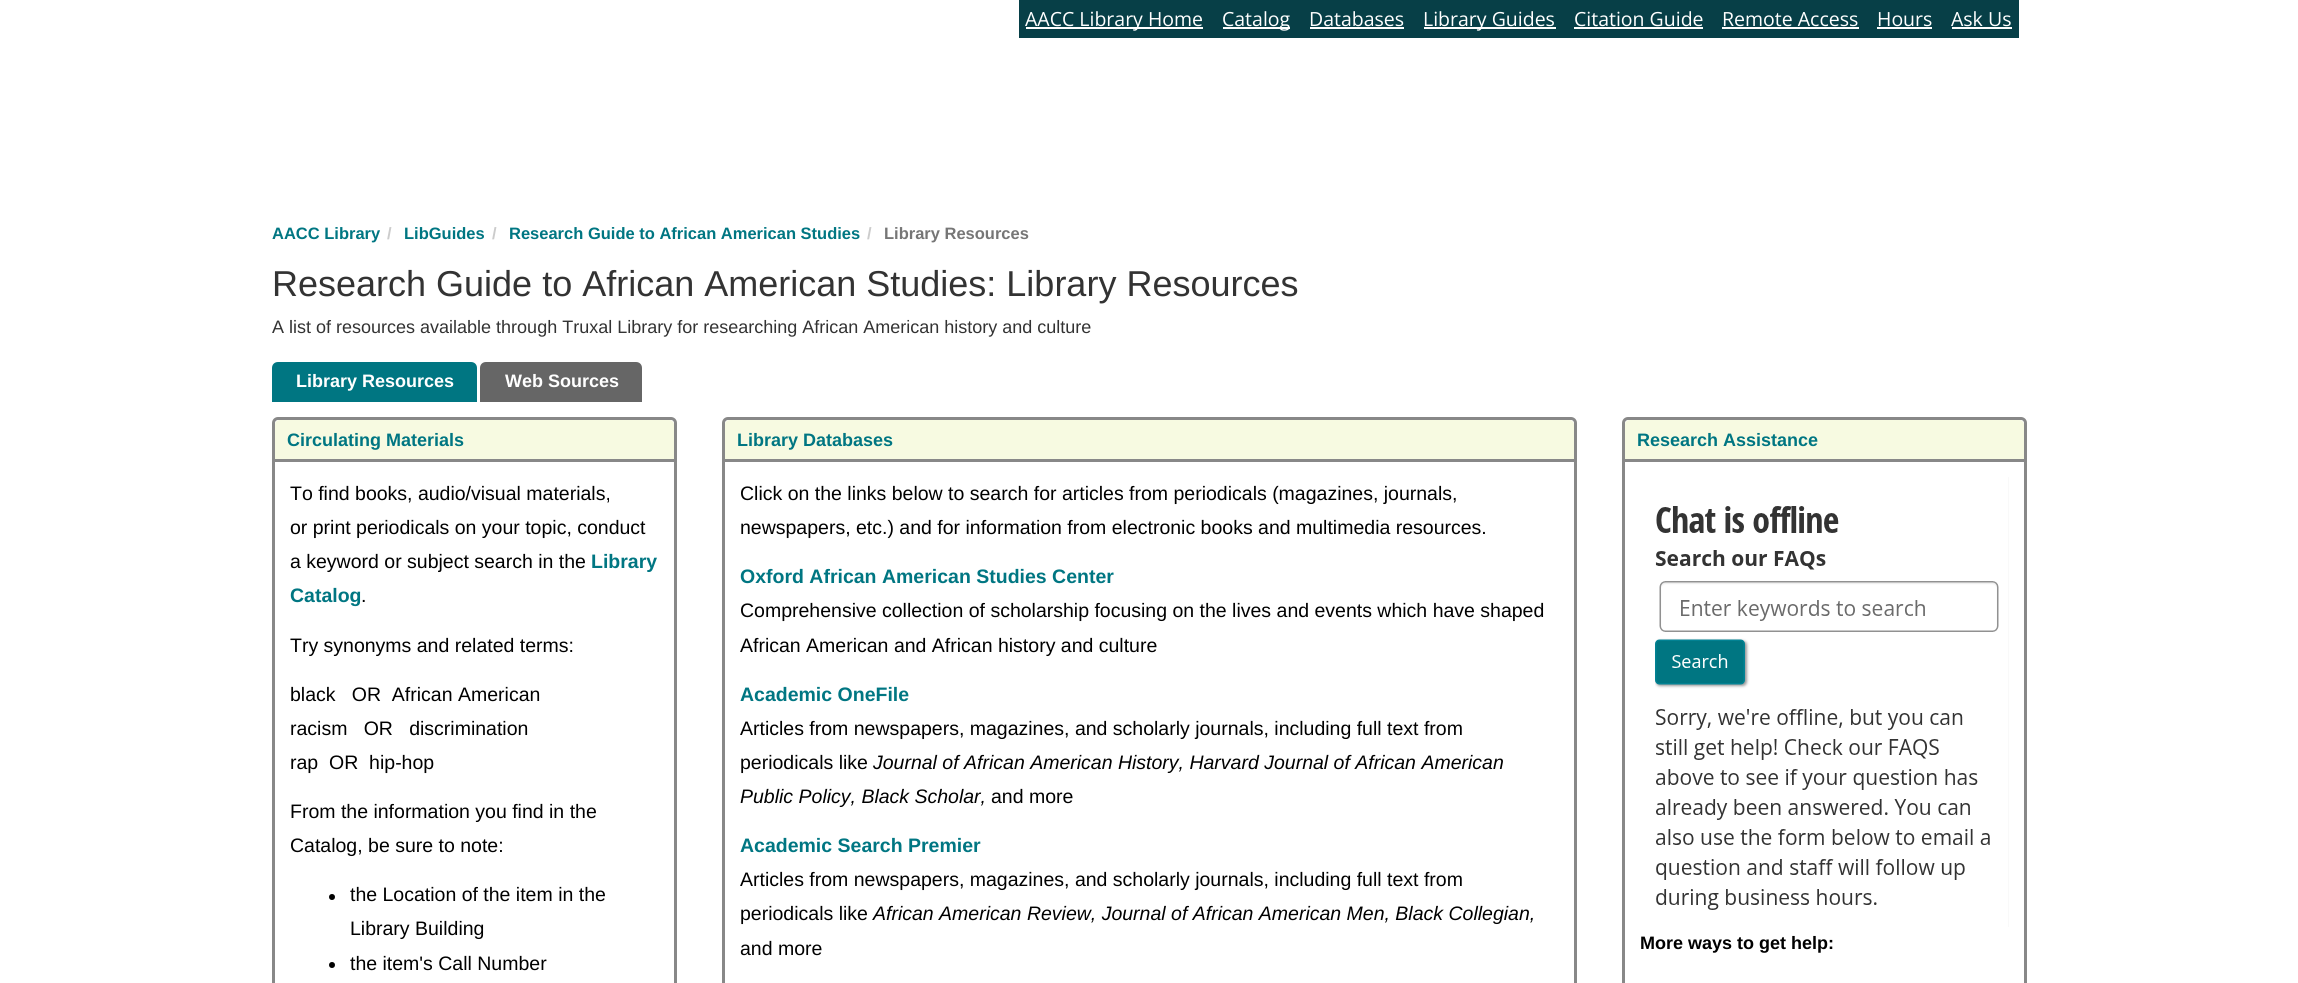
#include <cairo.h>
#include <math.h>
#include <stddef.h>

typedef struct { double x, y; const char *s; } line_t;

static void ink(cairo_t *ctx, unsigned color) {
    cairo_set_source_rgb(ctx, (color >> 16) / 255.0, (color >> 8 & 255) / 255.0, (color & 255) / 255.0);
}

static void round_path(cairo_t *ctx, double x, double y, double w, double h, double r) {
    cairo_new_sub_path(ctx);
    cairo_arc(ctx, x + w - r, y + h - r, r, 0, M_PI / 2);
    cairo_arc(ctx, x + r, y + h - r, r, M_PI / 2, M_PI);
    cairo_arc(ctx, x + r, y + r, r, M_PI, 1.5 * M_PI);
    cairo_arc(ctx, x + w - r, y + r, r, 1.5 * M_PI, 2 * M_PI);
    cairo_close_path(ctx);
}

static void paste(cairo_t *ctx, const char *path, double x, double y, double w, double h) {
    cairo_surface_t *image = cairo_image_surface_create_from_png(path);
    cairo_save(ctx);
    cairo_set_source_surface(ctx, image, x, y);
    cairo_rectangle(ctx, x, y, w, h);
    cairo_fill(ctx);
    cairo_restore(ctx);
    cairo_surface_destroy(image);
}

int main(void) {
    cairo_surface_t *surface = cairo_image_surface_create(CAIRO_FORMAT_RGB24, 2298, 983);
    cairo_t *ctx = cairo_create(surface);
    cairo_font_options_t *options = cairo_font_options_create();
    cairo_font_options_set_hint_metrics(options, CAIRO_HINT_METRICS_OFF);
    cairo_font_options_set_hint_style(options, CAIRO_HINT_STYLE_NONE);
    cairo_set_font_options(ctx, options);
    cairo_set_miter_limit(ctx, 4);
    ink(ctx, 0xFFFFFF);
    cairo_paint(ctx);
    ink(ctx, 0x073F47);
    cairo_rectangle(ctx, 1019, 0, 1000, 38);
    cairo_fill(ctx);
    ink(ctx, 0xFFFFFF);
    cairo_rectangle(ctx, 1026, 27, 177, 2);
    cairo_fill(ctx);
    cairo_select_font_face(ctx, "Open Sans", CAIRO_FONT_SLANT_NORMAL, CAIRO_FONT_WEIGHT_NORMAL);
    cairo_set_font_size(ctx, 19.5);
    cairo_move_to(ctx, 1025, 26);
    cairo_show_text(ctx, "AACC Library Home");
    cairo_rectangle(ctx, 1223, 27, 67, 2);
    cairo_fill(ctx);
    cairo_move_to(ctx, 1222, 26);
    cairo_show_text(ctx, "Catalog");
    cairo_move_to(ctx, 1309, 26);
    cairo_show_text(ctx, "Databases");
    cairo_rectangle(ctx, 1310, 27, 94, 2);
    cairo_fill(ctx);
    cairo_rectangle(ctx, 1424, 27, 132, 2);
    cairo_fill(ctx);
    cairo_move_to(ctx, 1423, 26);
    cairo_show_text(ctx, "Library Guides");
    cairo_move_to(ctx, 1574, 26);
    cairo_show_text(ctx, "Citation Guide");
    cairo_rectangle(ctx, 1574, 27, 129, 2);
    cairo_fill(ctx);
    cairo_move_to(ctx, 1722, 26);
    cairo_show_text(ctx, "Remote Access");
    cairo_rectangle(ctx, 1722, 27, 137, 2);
    cairo_fill(ctx);
    cairo_move_to(ctx, 1877, 26);
    cairo_show_text(ctx, "Hours");
    cairo_rectangle(ctx, 1877, 27, 55, 2);
    cairo_fill(ctx);
    cairo_move_to(ctx, 1951, 26);
    cairo_show_text(ctx, "Ask Us");
    cairo_rectangle(ctx, 1952, 27, 60, 2);
    cairo_fill(ctx);
    cairo_select_font_face(ctx, "Liberation Sans", CAIRO_FONT_SLANT_NORMAL, CAIRO_FONT_WEIGHT_BOLD);
    cairo_set_font_size(ctx, 16.5);
    ink(ctx, 0x007682);
    cairo_move_to(ctx, 272, 239);
    cairo_show_text(ctx, "AACC Library");
    ink(ctx, 0xCCCCCC);
    cairo_move_to(ctx, 387, 239);
    cairo_show_text(ctx, "/");
    ink(ctx, 0x007682);
    cairo_move_to(ctx, 404, 239);
    cairo_show_text(ctx, "LibGuides");
    ink(ctx, 0xCCCCCC);
    cairo_move_to(ctx, 492, 239);
    cairo_show_text(ctx, "/");
    ink(ctx, 0x007682);
    cairo_move_to(ctx, 509, 239);
    cairo_show_text(ctx, "Research Guide to African American Studies");
    ink(ctx, 0xCCCCCC);
    cairo_move_to(ctx, 867, 239);
    cairo_show_text(ctx, "/");
    ink(ctx, 0x767676);
    cairo_move_to(ctx, 884, 239);
    cairo_show_text(ctx, "Library Resources");
    cairo_select_font_face(ctx, "Liberation Sans", CAIRO_FONT_SLANT_NORMAL, CAIRO_FONT_WEIGHT_NORMAL);
    cairo_set_font_size(ctx, 36);
    ink(ctx, 0x333333);
    cairo_move_to(ctx, 272, 296);
    cairo_show_text(ctx, "Research Guide to African American Studies: Library Resources");
    cairo_set_font_size(ctx, 18);
    cairo_move_to(ctx, 272, 333);
    cairo_show_text(ctx, "A list of resources available through Truxal Library for researching African American history and culture");
    ink(ctx, 0x007682);
    cairo_new_path(ctx);
    cairo_move_to(ctx, 278, 362);
    cairo_line_to(ctx, 471, 362);
    cairo_curve_to(ctx, 474.5, 362, 477, 364.5, 477, 368);
    cairo_line_to(ctx, 477, 402);
    cairo_line_to(ctx, 272, 402);
    cairo_line_to(ctx, 272, 368);
    cairo_curve_to(ctx, 272, 364.5, 274.5, 362, 278, 362);
    cairo_close_path(ctx);
    cairo_fill(ctx);
    cairo_select_font_face(ctx, "Liberation Sans", CAIRO_FONT_SLANT_NORMAL, CAIRO_FONT_WEIGHT_BOLD);
    ink(ctx, 0xFFFFFF);
    cairo_move_to(ctx, 296, 387);
    cairo_show_text(ctx, "Library Resources");
    ink(ctx, 0x666666);
    cairo_new_path(ctx);
    cairo_move_to(ctx, 486, 362);
    cairo_line_to(ctx, 636, 362);
    cairo_curve_to(ctx, 639.5, 362, 642, 364.5, 642, 368);
    cairo_line_to(ctx, 642, 402);
    cairo_line_to(ctx, 480, 402);
    cairo_line_to(ctx, 480, 368);
    cairo_curve_to(ctx, 480, 364.5, 482.5, 362, 486, 362);
    cairo_close_path(ctx);
    cairo_fill(ctx);
    ink(ctx, 0xFFFFFF);
    cairo_move_to(ctx, 505, 387);
    cairo_show_text(ctx, "Web Sources");
    round_path(ctx, 273.5, 418.5, 402, 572, 4.5);
    ink(ctx, 0x888888);
    cairo_set_line_width(ctx, 3);
    cairo_stroke(ctx);
    ink(ctx, 0xF7FAE1);
    cairo_new_path(ctx);
    cairo_move_to(ctx, 280, 420);
    cairo_line_to(ctx, 669, 420);
    cairo_curve_to(ctx, 672, 420, 674, 422, 674, 425);
    cairo_line_to(ctx, 674, 462);
    cairo_line_to(ctx, 275, 462);
    cairo_line_to(ctx, 275, 425);
    cairo_curve_to(ctx, 275, 422, 277, 420, 280, 420);
    cairo_close_path(ctx);
    cairo_fill(ctx);
    ink(ctx, 0x888888);
    cairo_rectangle(ctx, 275, 459, 399, 3);
    cairo_fill(ctx);
    ink(ctx, 0x007682);
    cairo_move_to(ctx, 287, 446);
    cairo_show_text(ctx, "Circulating Materials");
    cairo_select_font_face(ctx, "Liberation Sans", CAIRO_FONT_SLANT_NORMAL, CAIRO_FONT_WEIGHT_NORMAL);
    cairo_set_font_size(ctx, 19.5);
    ink(ctx, 0x000000);
    {
        static const line_t items[] = {
            {290, 500, "To find books, audio/visual materials,"},
            {290, 534, "or print periodicals on your topic, conduct"},
            {290, 568, "a keyword or subject search in the"},
        };
        for (size_t i = 0; i < sizeof items / sizeof *items; i++) {
            cairo_move_to(ctx, items[i].x, items[i].y);
            cairo_show_text(ctx, items[i].s);
        }
    }
    cairo_select_font_face(ctx, "Liberation Sans", CAIRO_FONT_SLANT_NORMAL, CAIRO_FONT_WEIGHT_BOLD);
    ink(ctx, 0x007682);
    cairo_move_to(ctx, 591, 568);
    cairo_show_text(ctx, "Library");
    cairo_move_to(ctx, 290, 602);
    cairo_show_text(ctx, "Catalog");
    cairo_select_font_face(ctx, "Liberation Sans", CAIRO_FONT_SLANT_NORMAL, CAIRO_FONT_WEIGHT_NORMAL);
    ink(ctx, 0x000000);
    {
        static const line_t items[] = {
            {361, 602, "."},
            {290, 652, "Try synonyms and related terms:"},
            {290, 701, "black   OR  African American"},
            {290, 735, "racism   OR   discrimination"},
            {290, 769, "rap  OR  hip-hop"},
            {290, 818, "From the information you find in the"},
            {290, 852, "Catalog, be sure to note:"},
        };
        for (size_t i = 0; i < sizeof items / sizeof *items; i++) {
            cairo_move_to(ctx, items[i].x, items[i].y);
            cairo_show_text(ctx, items[i].s);
        }
    }
    cairo_new_path(ctx);
    cairo_arc(ctx, 332, 897, 3, 0, 2 * M_PI);
    cairo_fill(ctx);
    cairo_move_to(ctx, 350, 901);
    cairo_show_text(ctx, "the Location of the item in the");
    cairo_move_to(ctx, 350, 935);
    cairo_show_text(ctx, "Library Building");
    cairo_new_path(ctx);
    cairo_arc(ctx, 332, 965, 3, 0, 2 * M_PI);
    cairo_fill(ctx);
    cairo_move_to(ctx, 350, 970);
    cairo_show_text(ctx, "the item's Call Number");
    round_path(ctx, 723.5, 418.5, 852, 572, 4.5);
    ink(ctx, 0x888888);
    cairo_stroke(ctx);
    ink(ctx, 0xF7FAE1);
    cairo_new_path(ctx);
    cairo_move_to(ctx, 730, 420);
    cairo_line_to(ctx, 1569, 420);
    cairo_curve_to(ctx, 1572, 420, 1574, 422, 1574, 425);
    cairo_line_to(ctx, 1574, 462);
    cairo_line_to(ctx, 725, 462);
    cairo_line_to(ctx, 725, 425);
    cairo_curve_to(ctx, 725, 422, 727, 420, 730, 420);
    cairo_close_path(ctx);
    cairo_fill(ctx);
    ink(ctx, 0x888888);
    cairo_rectangle(ctx, 725, 459, 849, 3);
    cairo_fill(ctx);
    cairo_select_font_face(ctx, "Liberation Sans", CAIRO_FONT_SLANT_NORMAL, CAIRO_FONT_WEIGHT_BOLD);
    cairo_set_font_size(ctx, 18);
    ink(ctx, 0x007682);
    cairo_move_to(ctx, 737, 446);
    cairo_show_text(ctx, "Library Databases");
    cairo_select_font_face(ctx, "Liberation Sans", CAIRO_FONT_SLANT_NORMAL, CAIRO_FONT_WEIGHT_NORMAL);
    cairo_set_font_size(ctx, 19.5);
    ink(ctx, 0x000000);
    cairo_move_to(ctx, 740, 500);
    cairo_show_text(ctx, "Click on the links below to search for articles from periodicals (magazines, journals,");
    cairo_move_to(ctx, 740, 534);
    cairo_show_text(ctx, "newspapers, etc.) and for information from electronic books and multimedia resources.");
    cairo_select_font_face(ctx, "Liberation Sans", CAIRO_FONT_SLANT_NORMAL, CAIRO_FONT_WEIGHT_BOLD);
    ink(ctx, 0x007682);
    cairo_move_to(ctx, 740, 583);
    cairo_show_text(ctx, "Oxford African American Studies Center");
    cairo_select_font_face(ctx, "Liberation Sans", CAIRO_FONT_SLANT_NORMAL, CAIRO_FONT_WEIGHT_NORMAL);
    ink(ctx, 0x000000);
    cairo_move_to(ctx, 740, 617);
    cairo_show_text(ctx, "Comprehensive collection of scholarship focusing on the lives and events which have shaped");
    cairo_move_to(ctx, 740, 652);
    cairo_show_text(ctx, "African American and African history and culture");
    cairo_select_font_face(ctx, "Liberation Sans", CAIRO_FONT_SLANT_NORMAL, CAIRO_FONT_WEIGHT_BOLD);
    ink(ctx, 0x007682);
    cairo_move_to(ctx, 740, 701);
    cairo_show_text(ctx, "Academic OneFile");
    cairo_select_font_face(ctx, "Liberation Sans", CAIRO_FONT_SLANT_NORMAL, CAIRO_FONT_WEIGHT_NORMAL);
    ink(ctx, 0x000000);
    cairo_move_to(ctx, 740, 735);
    cairo_show_text(ctx, "Articles from newspapers, magazines, and scholarly journals, including full text from");
    cairo_move_to(ctx, 740, 769);
    cairo_show_text(ctx, "periodicals like");
    cairo_select_font_face(ctx, "Liberation Sans", CAIRO_FONT_SLANT_ITALIC, CAIRO_FONT_WEIGHT_NORMAL);
    cairo_move_to(ctx, 873, 769);
    cairo_show_text(ctx, "Journal of African American History, Harvard Journal of African American");
    cairo_move_to(ctx, 740, 803);
    cairo_show_text(ctx, "Public Policy, Black Scholar,");
    cairo_select_font_face(ctx, "Liberation Sans", CAIRO_FONT_SLANT_NORMAL, CAIRO_FONT_WEIGHT_NORMAL);
    cairo_move_to(ctx, 991, 803);
    cairo_show_text(ctx, "and more");
    cairo_select_font_face(ctx, "Liberation Sans", CAIRO_FONT_SLANT_NORMAL, CAIRO_FONT_WEIGHT_BOLD);
    ink(ctx, 0x007682);
    cairo_move_to(ctx, 740, 852);
    cairo_show_text(ctx, "Academic Search Premier");
    cairo_select_font_face(ctx, "Liberation Sans", CAIRO_FONT_SLANT_NORMAL, CAIRO_FONT_WEIGHT_NORMAL);
    ink(ctx, 0x000000);
    cairo_move_to(ctx, 740, 886);
    cairo_show_text(ctx, "Articles from newspapers, magazines, and scholarly journals, including full text from");
    cairo_move_to(ctx, 740, 920);
    cairo_show_text(ctx, "periodicals like");
    cairo_select_font_face(ctx, "Liberation Sans", CAIRO_FONT_SLANT_ITALIC, CAIRO_FONT_WEIGHT_NORMAL);
    cairo_move_to(ctx, 873, 920);
    cairo_show_text(ctx, "African American Review, Journal of African American Men, Black Collegian,");
    cairo_select_font_face(ctx, "Liberation Sans", CAIRO_FONT_SLANT_NORMAL, CAIRO_FONT_WEIGHT_NORMAL);
    cairo_move_to(ctx, 740, 955);
    cairo_show_text(ctx, "and more");
    round_path(ctx, 1623.5, 418.5, 402, 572, 4.5);
    ink(ctx, 0x888888);
    cairo_stroke(ctx);
    ink(ctx, 0xF7FAE1);
    cairo_new_path(ctx);
    cairo_move_to(ctx, 1630, 420);
    cairo_line_to(ctx, 2019, 420);
    cairo_curve_to(ctx, 2022, 420, 2024, 422, 2024, 425);
    cairo_line_to(ctx, 2024, 462);
    cairo_line_to(ctx, 1625, 462);
    cairo_line_to(ctx, 1625, 425);
    cairo_curve_to(ctx, 1625, 422, 1627, 420, 1630, 420);
    cairo_close_path(ctx);
    cairo_fill(ctx);
    ink(ctx, 0x888888);
    cairo_rectangle(ctx, 1625, 459, 399, 3);
    cairo_fill(ctx);
    cairo_select_font_face(ctx, "Liberation Sans", CAIRO_FONT_SLANT_NORMAL, CAIRO_FONT_WEIGHT_BOLD);
    cairo_set_font_size(ctx, 18);
    ink(ctx, 0x007682);
    cairo_move_to(ctx, 1637, 446);
    cairo_show_text(ctx, "Research Assistance");
    ink(ctx, 0xF9F9F9);
    cairo_rectangle(ctx, 2008, 477, 1, 450);
    cairo_fill(ctx);
    paste(ctx, "media/1.png", 1640, 477, 368, 450);
    ink(ctx, 0x000000);
    cairo_move_to(ctx, 1640, 949);
    cairo_show_text(ctx, "More ways to get help:");
    cairo_surface_write_to_png(surface, "image.png");
    cairo_font_options_destroy(options);
    cairo_destroy(ctx);
    cairo_surface_destroy(surface);
    return 0;
}
